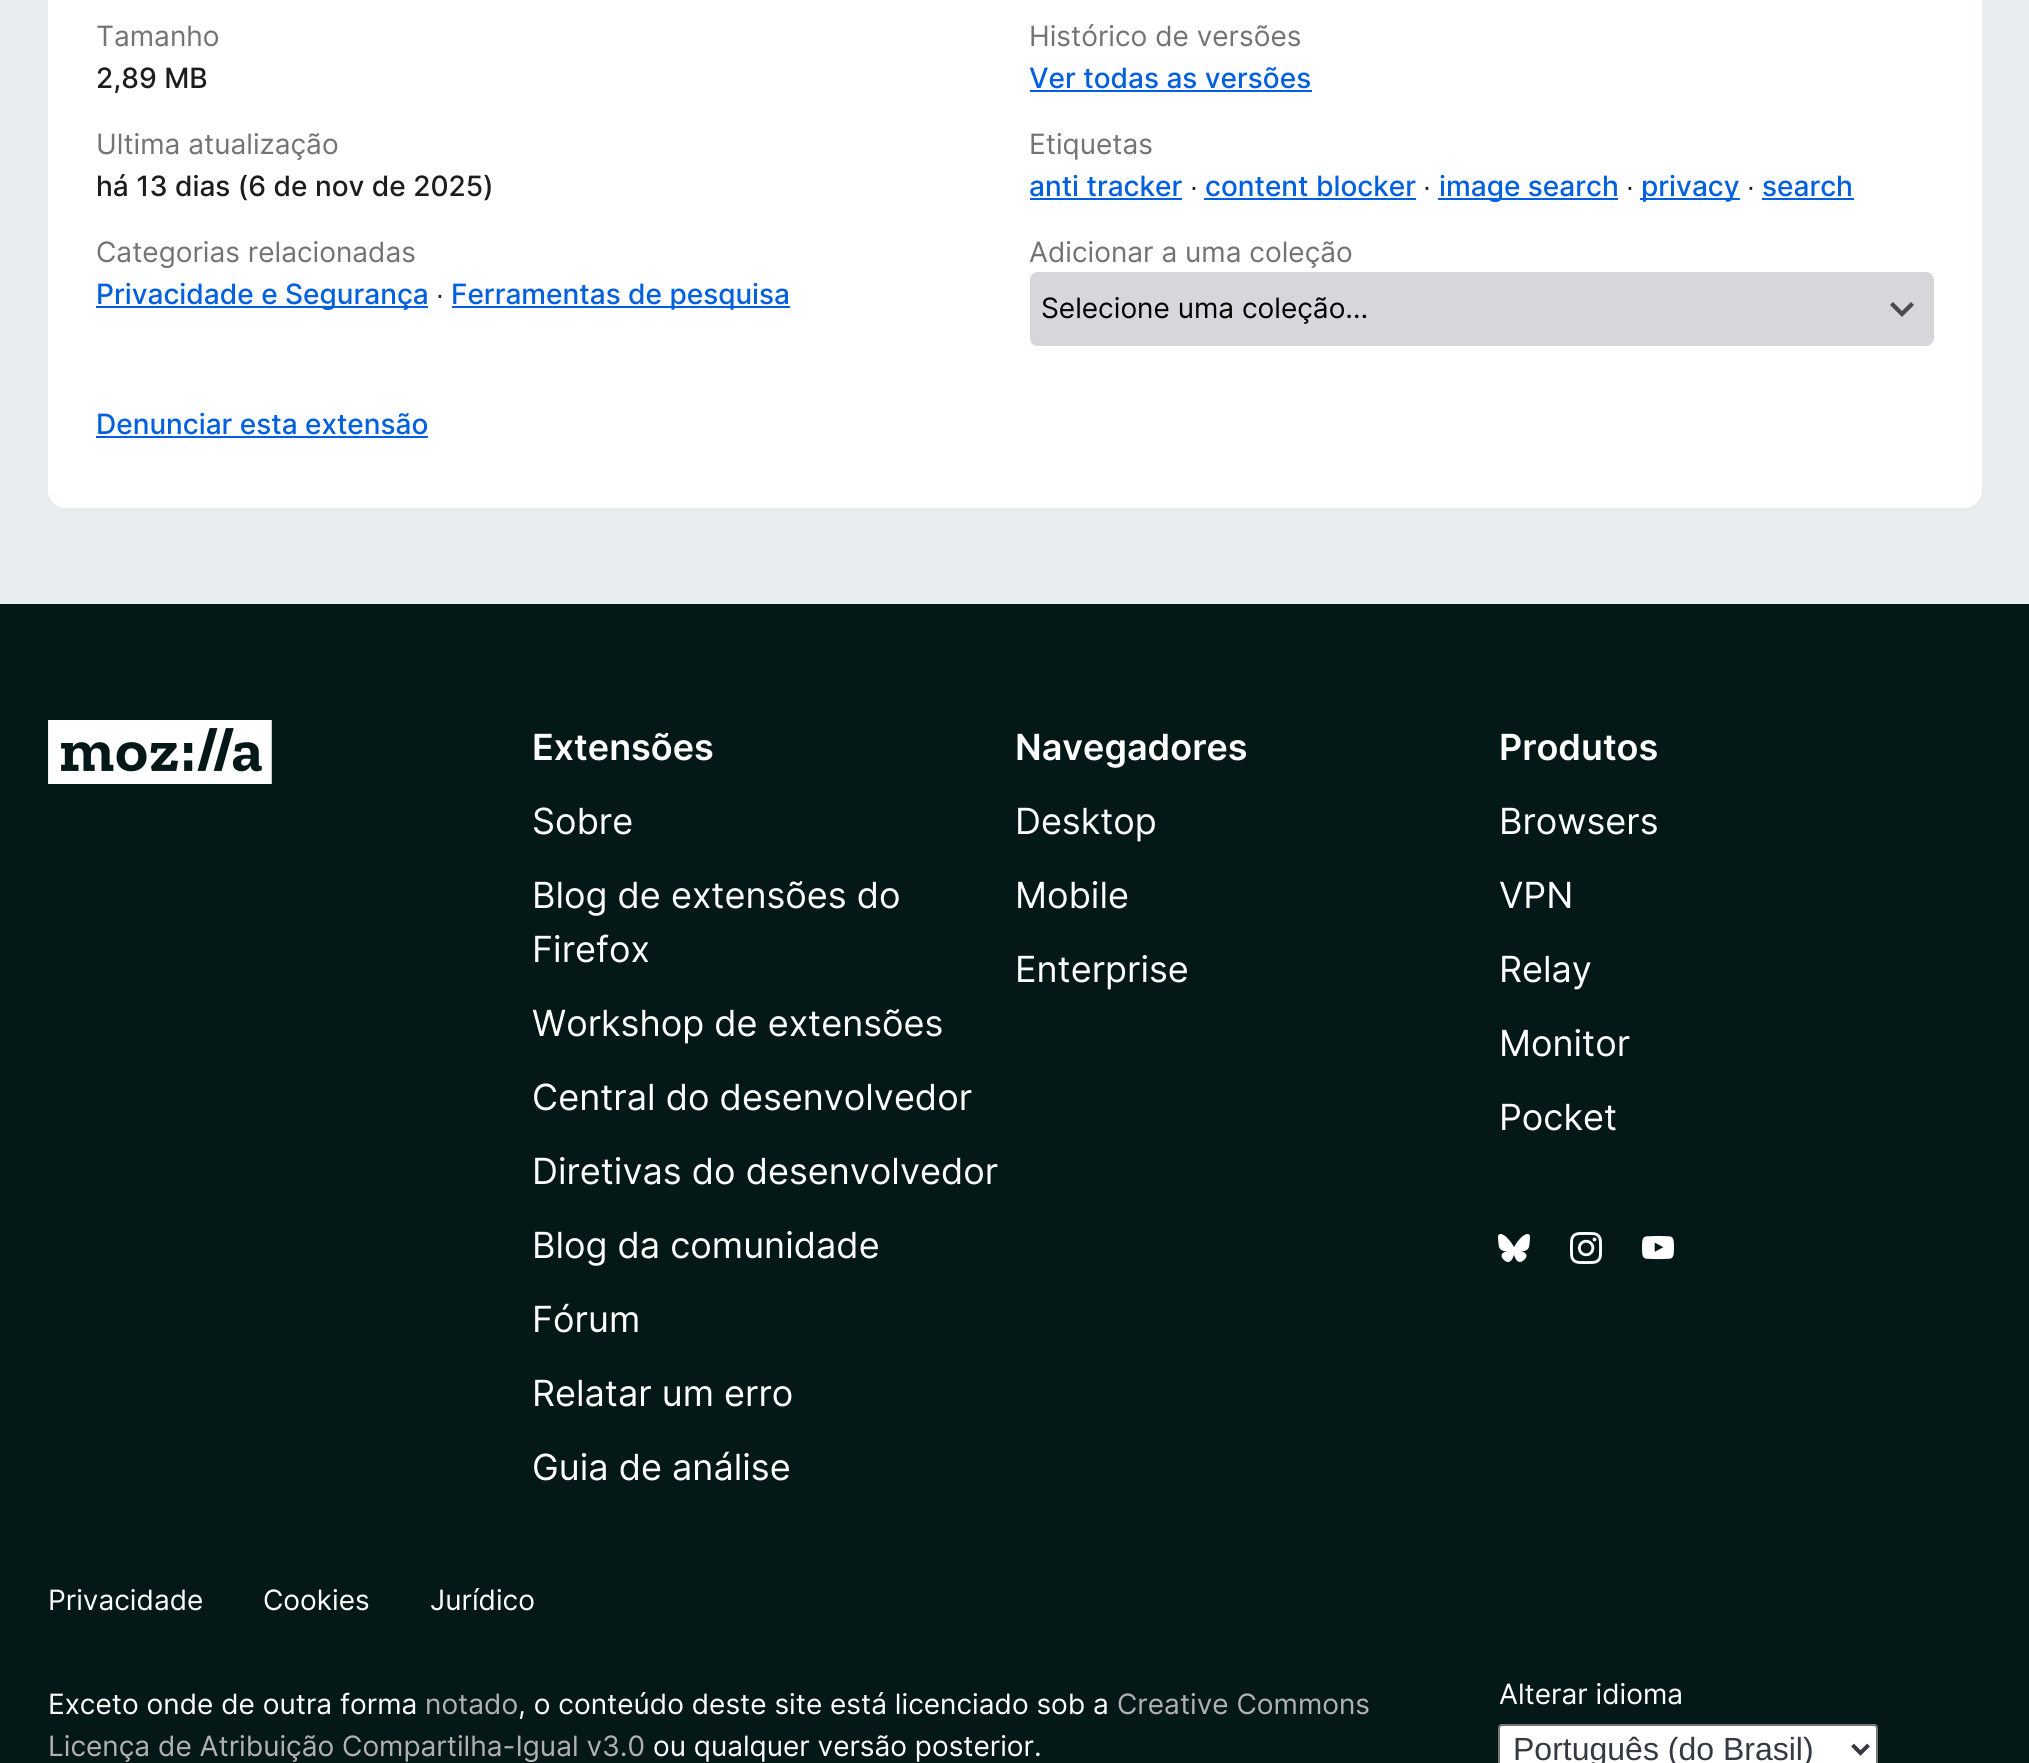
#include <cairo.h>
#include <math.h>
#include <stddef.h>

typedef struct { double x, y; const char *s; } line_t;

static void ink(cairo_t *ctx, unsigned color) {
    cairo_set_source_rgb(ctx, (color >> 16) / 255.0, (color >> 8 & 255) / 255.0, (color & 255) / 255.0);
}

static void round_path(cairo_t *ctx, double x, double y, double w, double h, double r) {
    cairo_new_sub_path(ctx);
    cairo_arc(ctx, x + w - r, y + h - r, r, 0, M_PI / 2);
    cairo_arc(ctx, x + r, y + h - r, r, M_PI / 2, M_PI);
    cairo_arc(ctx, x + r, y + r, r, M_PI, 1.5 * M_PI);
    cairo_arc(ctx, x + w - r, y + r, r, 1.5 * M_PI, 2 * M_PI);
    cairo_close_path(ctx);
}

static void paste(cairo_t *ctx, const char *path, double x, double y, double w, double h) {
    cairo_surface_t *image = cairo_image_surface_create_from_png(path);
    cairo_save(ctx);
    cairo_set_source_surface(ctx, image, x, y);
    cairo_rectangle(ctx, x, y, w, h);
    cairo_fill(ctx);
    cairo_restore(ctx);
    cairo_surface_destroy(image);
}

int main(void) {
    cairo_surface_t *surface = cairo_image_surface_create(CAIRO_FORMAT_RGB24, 2029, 1763);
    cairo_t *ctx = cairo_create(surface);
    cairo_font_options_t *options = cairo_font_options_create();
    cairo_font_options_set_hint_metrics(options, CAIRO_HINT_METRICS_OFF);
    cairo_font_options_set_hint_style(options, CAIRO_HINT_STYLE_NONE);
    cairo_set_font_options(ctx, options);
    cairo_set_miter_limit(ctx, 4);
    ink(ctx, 0xE9ECEF);
    cairo_paint(ctx);
    ink(ctx, 0xFFFFFF);
    round_path(ctx, 48, -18, 1934, 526, 18);
    cairo_fill(ctx);
    cairo_select_font_face(ctx, "Inter", CAIRO_FONT_SLANT_NORMAL, CAIRO_FONT_WEIGHT_NORMAL);
    cairo_set_font_size(ctx, 28);
    ink(ctx, 0x737373);
    cairo_move_to(ctx, 96, 46);
    cairo_show_text(ctx, "Tamanho");
    cairo_select_font_face(ctx, "Inter Medium", CAIRO_FONT_SLANT_NORMAL, CAIRO_FONT_WEIGHT_NORMAL);
    ink(ctx, 0x1D1D1D);
    cairo_move_to(ctx, 96, 88);
    cairo_show_text(ctx, "2,89 MB");
    cairo_select_font_face(ctx, "Inter", CAIRO_FONT_SLANT_NORMAL, CAIRO_FONT_WEIGHT_NORMAL);
    ink(ctx, 0x737373);
    cairo_move_to(ctx, 1029, 46);
    cairo_show_text(ctx, "Histórico de versões");
    cairo_select_font_face(ctx, "Inter Medium", CAIRO_FONT_SLANT_NORMAL, CAIRO_FONT_WEIGHT_NORMAL);
    ink(ctx, 0x0060DF);
    cairo_move_to(ctx, 1029, 88);
    cairo_show_text(ctx, "Ver todas as versões");
    cairo_rectangle(ctx, 1030, 90, 282, 2);
    cairo_fill(ctx);
    cairo_select_font_face(ctx, "Inter", CAIRO_FONT_SLANT_NORMAL, CAIRO_FONT_WEIGHT_NORMAL);
    ink(ctx, 0x737373);
    cairo_move_to(ctx, 96, 154);
    cairo_show_text(ctx, "Ultima atualização");
    cairo_select_font_face(ctx, "Inter Medium", CAIRO_FONT_SLANT_NORMAL, CAIRO_FONT_WEIGHT_NORMAL);
    ink(ctx, 0x1D1D1D);
    cairo_move_to(ctx, 96, 196);
    cairo_show_text(ctx, "há 13 dias (6 de nov de 2025)");
    cairo_select_font_face(ctx, "Inter", CAIRO_FONT_SLANT_NORMAL, CAIRO_FONT_WEIGHT_NORMAL);
    ink(ctx, 0x737373);
    cairo_move_to(ctx, 1029, 154);
    cairo_show_text(ctx, "Etiquetas");
    cairo_select_font_face(ctx, "Inter Medium", CAIRO_FONT_SLANT_NORMAL, CAIRO_FONT_WEIGHT_NORMAL);
    ink(ctx, 0x0060DF);
    cairo_move_to(ctx, 1029, 196);
    cairo_show_text(ctx, "anti tracker");
    cairo_rectangle(ctx, 1030, 198, 152, 2);
    cairo_fill(ctx);
    cairo_select_font_face(ctx, "Liberation Sans", CAIRO_FONT_SLANT_NORMAL, CAIRO_FONT_WEIGHT_NORMAL);
    ink(ctx, 0x1D1D1D);
    cairo_move_to(ctx, 1190, 196);
    cairo_show_text(ctx, "∙");
    cairo_select_font_face(ctx, "Inter Medium", CAIRO_FONT_SLANT_NORMAL, CAIRO_FONT_WEIGHT_NORMAL);
    ink(ctx, 0x0060DF);
    cairo_move_to(ctx, 1205, 196);
    cairo_show_text(ctx, "content blocker");
    cairo_rectangle(ctx, 1204, 198, 212, 2);
    cairo_fill(ctx);
    cairo_select_font_face(ctx, "Liberation Sans", CAIRO_FONT_SLANT_NORMAL, CAIRO_FONT_WEIGHT_NORMAL);
    ink(ctx, 0x1D1D1D);
    cairo_move_to(ctx, 1423, 196);
    cairo_show_text(ctx, "∙");
    ink(ctx, 0x0060DF);
    cairo_rectangle(ctx, 1438, 198, 180, 2);
    cairo_fill(ctx);
    cairo_select_font_face(ctx, "Inter Medium", CAIRO_FONT_SLANT_NORMAL, CAIRO_FONT_WEIGHT_NORMAL);
    cairo_move_to(ctx, 1439, 196);
    cairo_show_text(ctx, "image search");
    cairo_select_font_face(ctx, "Liberation Sans", CAIRO_FONT_SLANT_NORMAL, CAIRO_FONT_WEIGHT_NORMAL);
    ink(ctx, 0x1D1D1D);
    cairo_move_to(ctx, 1626, 196);
    cairo_show_text(ctx, "∙");
    ink(ctx, 0x0060DF);
    cairo_rectangle(ctx, 1640, 198, 100, 2);
    cairo_fill(ctx);
    cairo_select_font_face(ctx, "Inter Medium", CAIRO_FONT_SLANT_NORMAL, CAIRO_FONT_WEIGHT_NORMAL);
    cairo_move_to(ctx, 1641, 196);
    cairo_show_text(ctx, "privacy");
    cairo_select_font_face(ctx, "Liberation Sans", CAIRO_FONT_SLANT_NORMAL, CAIRO_FONT_WEIGHT_NORMAL);
    ink(ctx, 0x1D1D1D);
    cairo_move_to(ctx, 1747, 196);
    cairo_show_text(ctx, "∙");
    cairo_select_font_face(ctx, "Inter Medium", CAIRO_FONT_SLANT_NORMAL, CAIRO_FONT_WEIGHT_NORMAL);
    ink(ctx, 0x0060DF);
    cairo_move_to(ctx, 1762, 196);
    cairo_show_text(ctx, "search");
    cairo_rectangle(ctx, 1762, 198, 92, 2);
    cairo_fill(ctx);
    cairo_select_font_face(ctx, "Inter", CAIRO_FONT_SLANT_NORMAL, CAIRO_FONT_WEIGHT_NORMAL);
    ink(ctx, 0x737373);
    cairo_move_to(ctx, 96, 262);
    cairo_show_text(ctx, "Categorias relacionadas");
    ink(ctx, 0x0060DF);
    cairo_rectangle(ctx, 96, 306, 332, 2);
    cairo_fill(ctx);
    cairo_select_font_face(ctx, "Inter Medium", CAIRO_FONT_SLANT_NORMAL, CAIRO_FONT_WEIGHT_NORMAL);
    cairo_move_to(ctx, 96, 304);
    cairo_show_text(ctx, "Privacidade e Segurança");
    cairo_select_font_face(ctx, "Liberation Sans", CAIRO_FONT_SLANT_NORMAL, CAIRO_FONT_WEIGHT_NORMAL);
    ink(ctx, 0x1D1D1D);
    cairo_move_to(ctx, 436, 304);
    cairo_show_text(ctx, "∙");
    ink(ctx, 0x0060DF);
    cairo_rectangle(ctx, 452, 306, 338, 2);
    cairo_fill(ctx);
    cairo_select_font_face(ctx, "Inter Medium", CAIRO_FONT_SLANT_NORMAL, CAIRO_FONT_WEIGHT_NORMAL);
    cairo_move_to(ctx, 451, 304);
    cairo_show_text(ctx, "Ferramentas de pesquisa");
    cairo_select_font_face(ctx, "Inter", CAIRO_FONT_SLANT_NORMAL, CAIRO_FONT_WEIGHT_NORMAL);
    ink(ctx, 0x737373);
    cairo_move_to(ctx, 1029, 262);
    cairo_show_text(ctx, "Adicionar a uma coleção");
    ink(ctx, 0xD7D7DB);
    round_path(ctx, 1030, 272, 904, 74, 8);
    cairo_fill(ctx);
    ink(ctx, 0x4A4A4F);
    cairo_set_fill_rule(ctx, CAIRO_FILL_RULE_EVEN_ODD);
    cairo_new_path(ctx);
    cairo_move_to(ctx, 1911, 302);
    cairo_line_to(ctx, 1902, 311);
    cairo_line_to(ctx, 1893, 302);
    cairo_line_to(ctx, 1890, 305);
    cairo_line_to(ctx, 1902, 317);
    cairo_line_to(ctx, 1914, 305);
    cairo_close_path(ctx);
    cairo_fill(ctx);
    ink(ctx, 0x000000);
    cairo_move_to(ctx, 1041, 318);
    cairo_show_text(ctx, "Selecione uma coleção…");
    cairo_select_font_face(ctx, "Inter Medium", CAIRO_FONT_SLANT_NORMAL, CAIRO_FONT_WEIGHT_NORMAL);
    ink(ctx, 0x0060DF);
    cairo_move_to(ctx, 96, 434);
    cairo_show_text(ctx, "Denunciar esta extensão");
    cairo_rectangle(ctx, 96, 436, 332, 2);
    cairo_fill(ctx);
    ink(ctx, 0x051818);
    cairo_rectangle(ctx, 0, 604, 2029, 1159);
    cairo_fill(ctx);
    paste(ctx, "media/1.png", 48, 720, 224, 64);
    cairo_select_font_face(ctx, "Inter SemiBold", CAIRO_FONT_SLANT_NORMAL, CAIRO_FONT_WEIGHT_NORMAL);
    cairo_set_font_size(ctx, 36);
    ink(ctx, 0xFFFFFF);
    cairo_move_to(ctx, 532, 760);
    cairo_show_text(ctx, "Extensões");
    cairo_select_font_face(ctx, "Inter", CAIRO_FONT_SLANT_NORMAL, CAIRO_FONT_WEIGHT_NORMAL);
    {
        static const line_t items[] = {
            {532, 834, "Sobre"},
            {532, 908, "Blog de extensões do"},
            {532, 962, "Firefox"},
            {532, 1036, "Workshop de extensões"},
            {532, 1110, "Central do desenvolvedor"},
            {532, 1184, "Diretivas do desenvolvedor"},
            {532, 1258, "Blog da comunidade"},
            {532, 1332, "Fórum"},
            {532, 1406, "Relatar um erro"},
            {532, 1480, "Guia de análise"},
        };
        for (size_t i = 0; i < sizeof items / sizeof *items; i++) {
            cairo_move_to(ctx, items[i].x, items[i].y);
            cairo_show_text(ctx, items[i].s);
        }
    }
    cairo_select_font_face(ctx, "Inter SemiBold", CAIRO_FONT_SLANT_NORMAL, CAIRO_FONT_WEIGHT_NORMAL);
    cairo_move_to(ctx, 1015, 760);
    cairo_show_text(ctx, "Navegadores");
    cairo_select_font_face(ctx, "Inter", CAIRO_FONT_SLANT_NORMAL, CAIRO_FONT_WEIGHT_NORMAL);
    {
        static const line_t items[] = {
            {1015, 834, "Desktop"},
            {1015, 908, "Mobile"},
            {1015, 982, "Enterprise"},
        };
        for (size_t i = 0; i < sizeof items / sizeof *items; i++) {
            cairo_move_to(ctx, items[i].x, items[i].y);
            cairo_show_text(ctx, items[i].s);
        }
    }
    cairo_select_font_face(ctx, "Inter SemiBold", CAIRO_FONT_SLANT_NORMAL, CAIRO_FONT_WEIGHT_NORMAL);
    cairo_move_to(ctx, 1499, 760);
    cairo_show_text(ctx, "Produtos");
    cairo_select_font_face(ctx, "Inter", CAIRO_FONT_SLANT_NORMAL, CAIRO_FONT_WEIGHT_NORMAL);
    {
        static const line_t items[] = {
            {1499, 834, "Browsers"},
            {1499, 908, "VPN"},
            {1499, 982, "Relay"},
            {1499, 1056, "Monitor"},
            {1499, 1130, "Pocket"},
        };
        for (size_t i = 0; i < sizeof items / sizeof *items; i++) {
            cairo_move_to(ctx, items[i].x, items[i].y);
            cairo_show_text(ctx, items[i].s);
        }
    }
    paste(ctx, "media/2.png", 1498, 1234, 32, 28);
    paste(ctx, "media/3.png", 1570, 1232, 32, 32);
    paste(ctx, "media/4.png", 1642, 1236, 32, 24);
    cairo_set_font_size(ctx, 28);
    {
        static const line_t items[] = {
            {48, 1610, "Privacidade"},
            {263, 1610, "Cookies"},
            {430, 1610, "Jurídico"},
            {48, 1714, "Exceto onde de outra forma"},
        };
        for (size_t i = 0; i < sizeof items / sizeof *items; i++) {
            cairo_move_to(ctx, items[i].x, items[i].y);
            cairo_show_text(ctx, items[i].s);
        }
    }
    ink(ctx, 0xB1B1B3);
    cairo_move_to(ctx, 425, 1714);
    cairo_show_text(ctx, "notado");
    ink(ctx, 0xFFFFFF);
    cairo_move_to(ctx, 518, 1714);
    cairo_show_text(ctx, ", o conteúdo deste site está licenciado sob a");
    ink(ctx, 0xB1B1B3);
    cairo_move_to(ctx, 1117, 1714);
    cairo_show_text(ctx, "Creative Commons");
    cairo_move_to(ctx, 48, 1756);
    cairo_show_text(ctx, "Licença de Atribuição Compartilha-Igual v3.0");
    ink(ctx, 0xFFFFFF);
    cairo_move_to(ctx, 653, 1756);
    cairo_show_text(ctx, "ou qualquer versão posterior.");
    cairo_move_to(ctx, 1499, 1704);
    cairo_show_text(ctx, "Alterar idioma");
    round_path(ctx, 1499, 1725, 378, 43, 3);
    cairo_fill_preserve(ctx);
    ink(ctx, 0x767676);
    cairo_stroke(ctx);
    cairo_new_path(ctx);
    cairo_move_to(ctx, 1852.5, 1745);
    cairo_line_to(ctx, 1860.5, 1753);
    cairo_line_to(ctx, 1868.5, 1745);
    ink(ctx, 0x343A40);
    cairo_set_line_width(ctx, 4);
    cairo_stroke(ctx);
    cairo_select_font_face(ctx, "Liberation Sans", CAIRO_FONT_SLANT_NORMAL, CAIRO_FONT_WEIGHT_NORMAL);
    cairo_set_font_size(ctx, 32);
    cairo_move_to(ctx, 1513, 1760);
    cairo_show_text(ctx, "Português (do Brasil)");
    cairo_surface_write_to_png(surface, "image.png");
    cairo_font_options_destroy(options);
    cairo_destroy(ctx);
    cairo_surface_destroy(surface);
    return 0;
}
